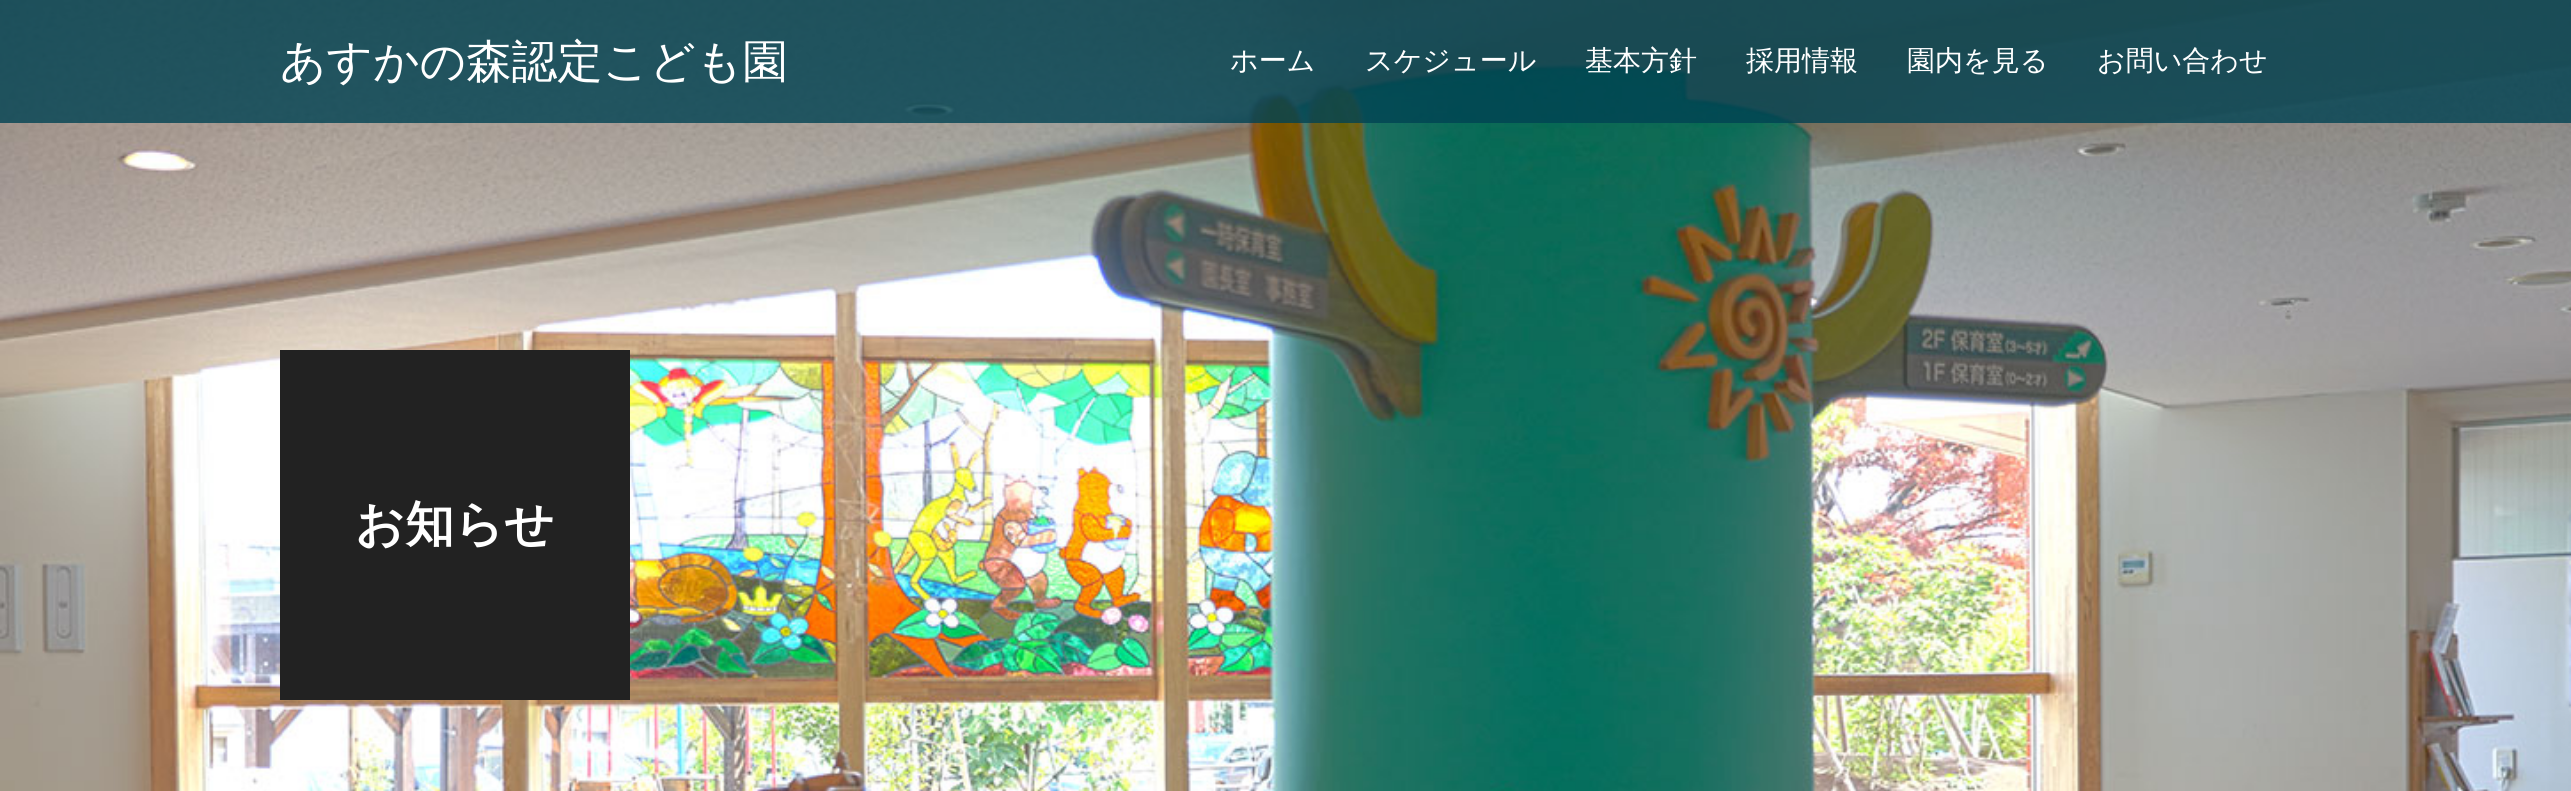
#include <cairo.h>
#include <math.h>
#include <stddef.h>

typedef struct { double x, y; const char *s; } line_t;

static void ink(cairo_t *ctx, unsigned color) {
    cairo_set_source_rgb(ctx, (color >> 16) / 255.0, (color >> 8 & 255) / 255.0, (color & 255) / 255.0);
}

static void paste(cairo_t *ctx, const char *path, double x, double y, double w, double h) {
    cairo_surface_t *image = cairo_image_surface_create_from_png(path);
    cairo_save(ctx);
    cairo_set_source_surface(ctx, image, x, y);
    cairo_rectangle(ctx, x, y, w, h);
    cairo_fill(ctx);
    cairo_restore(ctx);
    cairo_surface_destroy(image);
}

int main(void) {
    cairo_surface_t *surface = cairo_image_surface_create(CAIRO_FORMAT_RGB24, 2571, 791);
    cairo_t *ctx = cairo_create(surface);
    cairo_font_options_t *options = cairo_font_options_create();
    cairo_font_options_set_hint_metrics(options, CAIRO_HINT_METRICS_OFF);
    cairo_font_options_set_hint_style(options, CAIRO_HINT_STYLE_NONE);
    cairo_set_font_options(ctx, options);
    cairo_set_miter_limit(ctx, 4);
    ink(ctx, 0xFFFFFF);
    cairo_paint(ctx);
    paste(ctx, "media/1.png", 0, 0, 2571, 791);
    cairo_set_source_rgba(ctx, 0, 0.263, 0.325, 0.8);
    cairo_rectangle(ctx, 0, 0, 2571, 123);
    cairo_fill(ctx);
    cairo_select_font_face(ctx, "WenQuanYi Zen Hei Medium", CAIRO_FONT_SLANT_NORMAL, CAIRO_FONT_WEIGHT_NORMAL);
    cairo_set_font_size(ctx, 45.5);
    ink(ctx, 0xFFFFFF);
    cairo_move_to(ctx, 280, 77);
    cairo_show_text(ctx, "あすかの森認定こども園");
    cairo_set_font_size(ctx, 28);
    {
        static const line_t items[] = {
            {1230, 70, "ホーム"},
            {1365, 70, "スケジュール"},
            {1585, 70, "基本方針"},
            {1746, 70, "採用情報"},
            {1907, 70, "園内を見る"},
            {2097, 70, "お問い合わせ"},
        };
        for (size_t i = 0; i < sizeof items / sizeof *items; i++) {
            cairo_move_to(ctx, items[i].x, items[i].y);
            cairo_show_text(ctx, items[i].s);
        }
    }
    ink(ctx, 0x222222);
    cairo_rectangle(ctx, 280, 350, 350, 350);
    cairo_fill(ctx);
    cairo_select_font_face(ctx, "WenQuanYi Zen Hei", CAIRO_FONT_SLANT_NORMAL, CAIRO_FONT_WEIGHT_BOLD);
    cairo_set_font_size(ctx, 49);
    ink(ctx, 0xFFFFFF);
    cairo_move_to(ctx, 355, 541);
    cairo_show_text(ctx, "お知らせ");
    cairo_surface_write_to_png(surface, "image.png");
    cairo_font_options_destroy(options);
    cairo_destroy(ctx);
    cairo_surface_destroy(surface);
    return 0;
}
